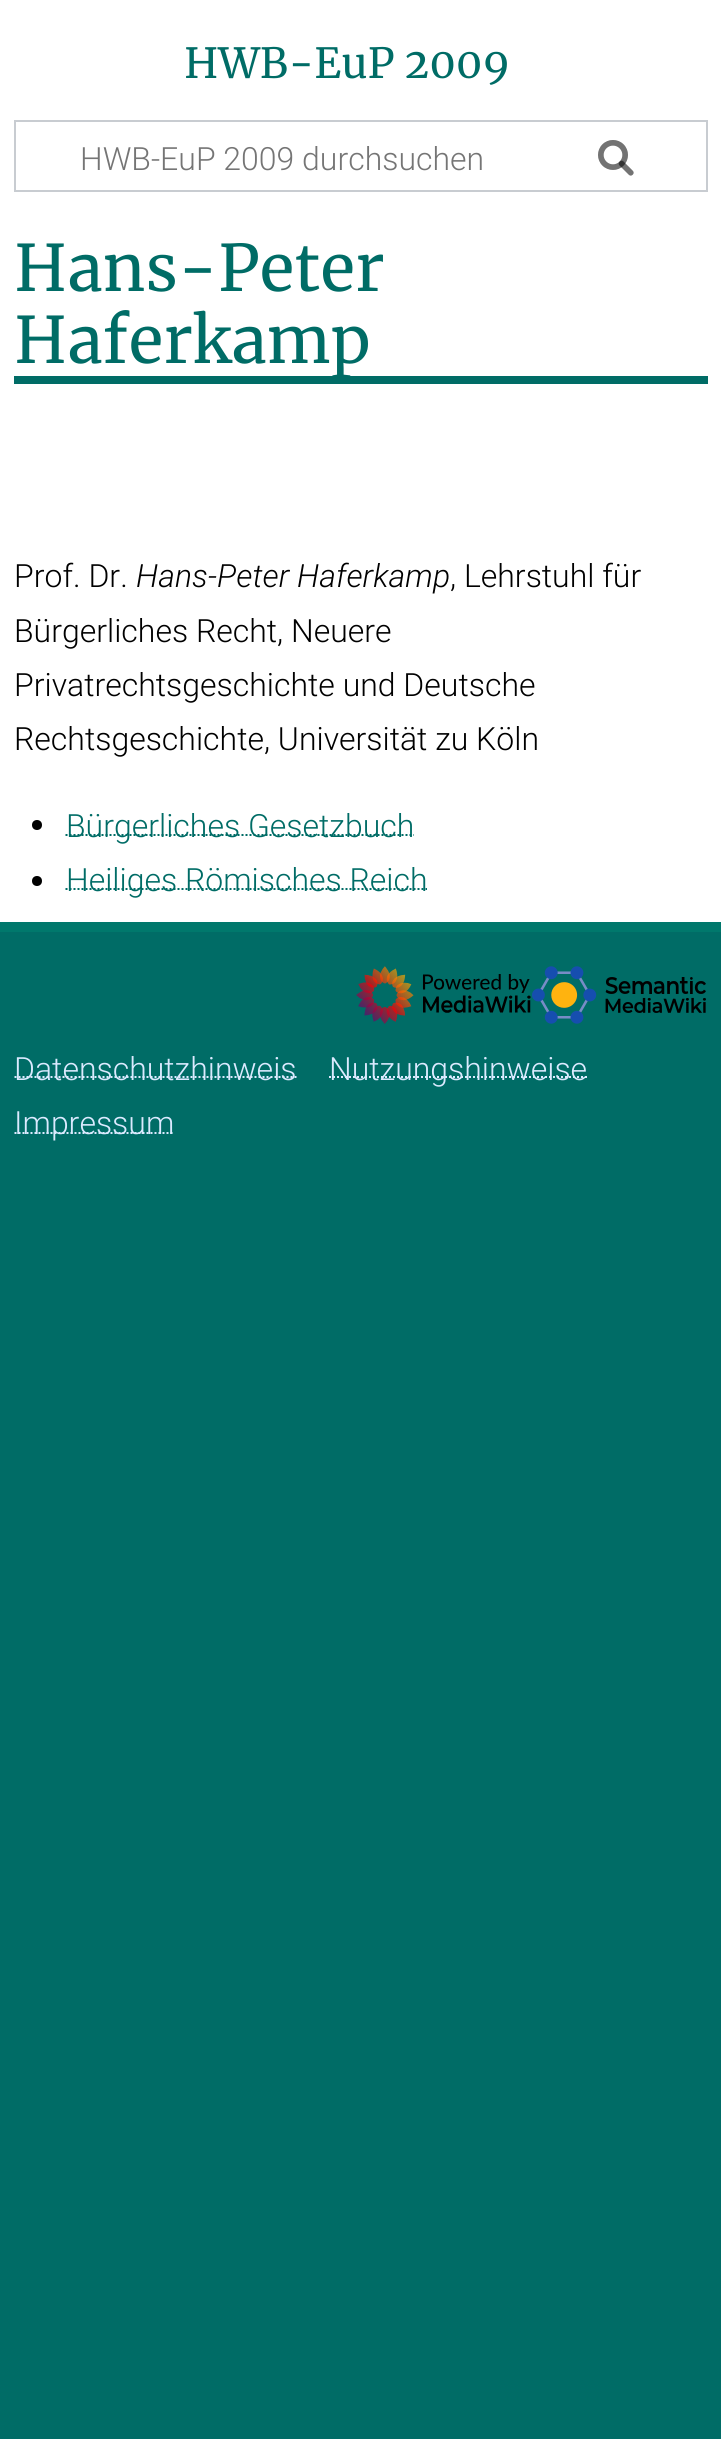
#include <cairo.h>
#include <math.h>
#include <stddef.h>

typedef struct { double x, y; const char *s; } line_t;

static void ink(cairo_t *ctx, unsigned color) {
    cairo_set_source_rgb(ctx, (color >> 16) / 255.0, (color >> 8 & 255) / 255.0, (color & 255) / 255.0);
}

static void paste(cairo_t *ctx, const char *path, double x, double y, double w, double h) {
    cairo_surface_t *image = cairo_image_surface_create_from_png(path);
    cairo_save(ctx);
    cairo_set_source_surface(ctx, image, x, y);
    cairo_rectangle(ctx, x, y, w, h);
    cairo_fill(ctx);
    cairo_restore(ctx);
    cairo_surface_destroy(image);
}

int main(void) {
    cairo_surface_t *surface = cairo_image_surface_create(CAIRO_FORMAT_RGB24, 721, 2439);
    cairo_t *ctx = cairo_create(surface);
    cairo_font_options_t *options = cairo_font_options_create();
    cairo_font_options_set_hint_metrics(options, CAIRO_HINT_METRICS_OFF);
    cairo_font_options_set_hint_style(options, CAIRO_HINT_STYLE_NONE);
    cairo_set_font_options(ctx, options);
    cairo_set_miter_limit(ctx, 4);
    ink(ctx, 0x006C66);
    cairo_paint(ctx);
    ink(ctx, 0xFFFFFF);
    cairo_rectangle(ctx, 0, 0, 721, 922);
    cairo_fill(ctx);
    cairo_select_font_face(ctx, "Merriweather", CAIRO_FONT_SLANT_NORMAL, CAIRO_FONT_WEIGHT_NORMAL);
    cairo_set_font_size(ctx, 41.5);
    ink(ctx, 0x006C66);
    cairo_move_to(ctx, 184, 78);
    cairo_show_text(ctx, "HWB-EuP 2009");
    cairo_rectangle(ctx, 15, 121, 692, 70);
    ink(ctx, 0xC8CCD1);
    cairo_stroke(ctx);
    paste(ctx, "media/1.png", 598, 140, 36, 36);
    cairo_select_font_face(ctx, "Roboto Light", CAIRO_FONT_SLANT_NORMAL, CAIRO_FONT_WEIGHT_NORMAL);
    cairo_set_font_size(ctx, 32);
    ink(ctx, 0x757575);
    cairo_move_to(ctx, 80, 170);
    cairo_show_text(ctx, "HWB-EuP 2009 durchsuchen");
    paste(ctx, "media/2.png", 598, 140, 36, 36);
    ink(ctx, 0x00786C);
    cairo_rectangle(ctx, 0, 922, 721, 10);
    cairo_fill(ctx);
    ink(ctx, 0x006C66);
    cairo_rectangle(ctx, 14, 376, 694, 8);
    cairo_fill(ctx);
    cairo_select_font_face(ctx, "Merriweather", CAIRO_FONT_SLANT_NORMAL, CAIRO_FONT_WEIGHT_NORMAL);
    cairo_set_font_size(ctx, 64);
    cairo_move_to(ctx, 14, 291);
    cairo_show_text(ctx, "Hans-Peter");
    cairo_move_to(ctx, 14, 363);
    cairo_show_text(ctx, "Haferkamp");
    cairo_select_font_face(ctx, "Roboto Light", CAIRO_FONT_SLANT_NORMAL, CAIRO_FONT_WEIGHT_NORMAL);
    cairo_set_font_size(ctx, 32);
    ink(ctx, 0x000000);
    cairo_move_to(ctx, 14, 587);
    cairo_show_text(ctx, "Prof. Dr.");
    cairo_select_font_face(ctx, "Roboto Light", CAIRO_FONT_SLANT_ITALIC, CAIRO_FONT_WEIGHT_NORMAL);
    cairo_move_to(ctx, 136, 587);
    cairo_show_text(ctx, "Hans-Peter Haferkamp");
    cairo_select_font_face(ctx, "Roboto Light", CAIRO_FONT_SLANT_NORMAL, CAIRO_FONT_WEIGHT_NORMAL);
    {
        static const line_t items[] = {
            {450, 587, ", Lehrstuhl für"},
            {14, 642, "Bürgerliches Recht, Neuere"},
            {14, 696, "Privatrechtsgeschichte und Deutsche"},
            {14, 750, "Rechtsgeschichte, Universität zu Köln"},
        };
        for (size_t i = 0; i < sizeof items / sizeof *items; i++) {
            cairo_move_to(ctx, items[i].x, items[i].y);
            cairo_show_text(ctx, items[i].s);
        }
    }
    cairo_new_path(ctx);
    cairo_arc(ctx, 37, 825, 5, 0, 2 * M_PI);
    cairo_fill(ctx);
    cairo_new_path(ctx);
    cairo_move_to(ctx, 65.5, 835);
    cairo_line_to(ctx, 414, 835);
    ink(ctx, 0x006C66);
    cairo_set_dash(ctx, (double[]){2, 2}, 2, 0);
    cairo_stroke(ctx);
    cairo_move_to(ctx, 66, 837);
    cairo_show_text(ctx, "Bürgerliches Gesetzbuch");
    ink(ctx, 0x000000);
    cairo_new_path(ctx);
    cairo_arc(ctx, 37, 881, 5, 0, 2 * M_PI);
    cairo_fill(ctx);
    cairo_new_path(ctx);
    cairo_move_to(ctx, 65.5, 889);
    cairo_line_to(ctx, 427, 889);
    ink(ctx, 0x006C66);
    cairo_stroke(ctx);
    cairo_move_to(ctx, 66, 891);
    cairo_show_text(ctx, "Heiliges Römisches Reich");
    paste(ctx, "media/3.png", 356, 966, 175, 58);
    paste(ctx, "media/4.png", 532, 966, 174, 58);
    cairo_new_path(ctx);
    cairo_move_to(ctx, 14.5, 1077);
    cairo_line_to(ctx, 297, 1077);
    ink(ctx, 0xDBEAFF);
    cairo_stroke(ctx);
    cairo_move_to(ctx, 14, 1080);
    cairo_show_text(ctx, "Datenschutzhinweis");
    cairo_new_path(ctx);
    cairo_move_to(ctx, 329, 1077);
    cairo_line_to(ctx, 587, 1077);
    cairo_stroke(ctx);
    cairo_move_to(ctx, 329, 1080);
    cairo_show_text(ctx, "Nutzungshinweise");
    cairo_new_path(ctx);
    cairo_move_to(ctx, 14.5, 1133);
    cairo_line_to(ctx, 174.5, 1133);
    cairo_stroke(ctx);
    cairo_move_to(ctx, 14, 1134);
    cairo_show_text(ctx, "Impressum");
    cairo_surface_write_to_png(surface, "image.png");
    cairo_font_options_destroy(options);
    cairo_destroy(ctx);
    cairo_surface_destroy(surface);
    return 0;
}
